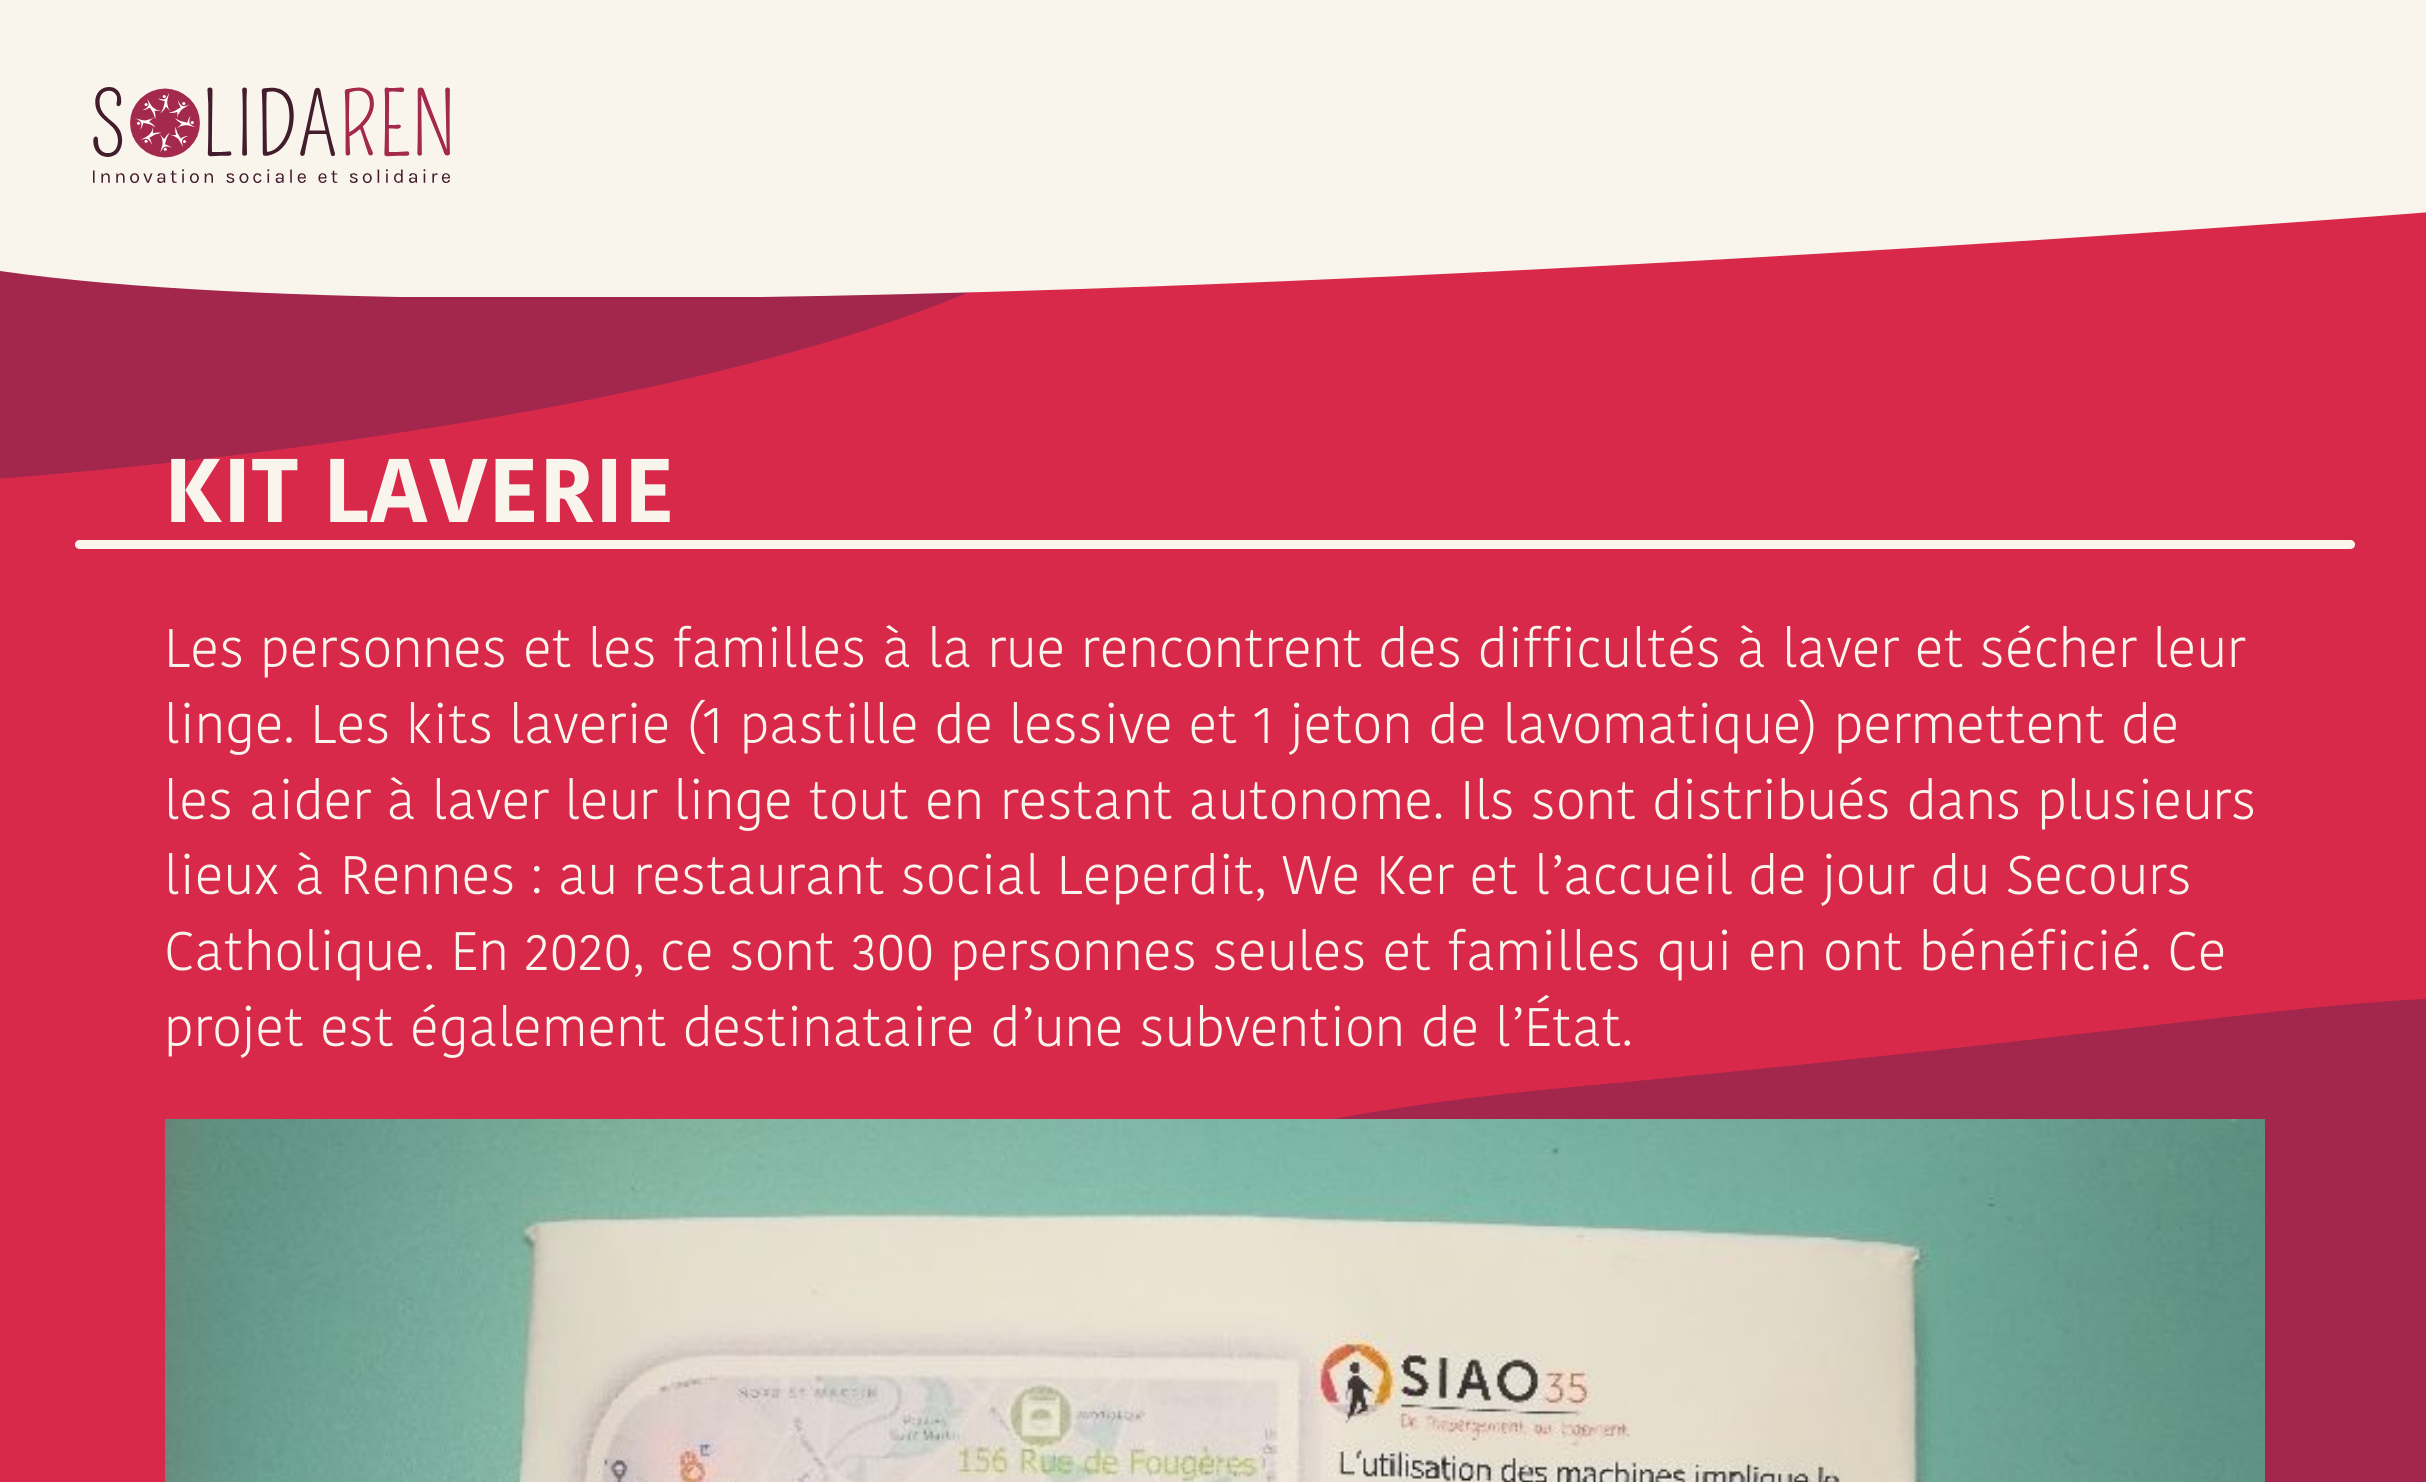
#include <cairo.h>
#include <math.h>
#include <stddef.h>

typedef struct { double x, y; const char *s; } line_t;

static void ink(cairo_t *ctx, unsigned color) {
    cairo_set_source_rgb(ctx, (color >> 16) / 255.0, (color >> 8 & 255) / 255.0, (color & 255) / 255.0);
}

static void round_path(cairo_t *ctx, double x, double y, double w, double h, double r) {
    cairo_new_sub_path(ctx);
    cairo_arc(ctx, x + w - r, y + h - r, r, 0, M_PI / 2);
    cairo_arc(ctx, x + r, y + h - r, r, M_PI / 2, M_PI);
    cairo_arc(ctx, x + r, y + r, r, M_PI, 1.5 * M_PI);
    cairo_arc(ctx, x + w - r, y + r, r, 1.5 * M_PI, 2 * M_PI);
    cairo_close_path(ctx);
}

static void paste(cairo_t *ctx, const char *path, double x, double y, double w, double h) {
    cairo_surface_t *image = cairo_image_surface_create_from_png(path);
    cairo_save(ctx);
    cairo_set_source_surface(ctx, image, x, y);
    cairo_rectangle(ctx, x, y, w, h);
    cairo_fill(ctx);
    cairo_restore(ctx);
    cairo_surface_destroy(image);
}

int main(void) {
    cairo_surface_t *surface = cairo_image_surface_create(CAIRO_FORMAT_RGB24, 2426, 1482);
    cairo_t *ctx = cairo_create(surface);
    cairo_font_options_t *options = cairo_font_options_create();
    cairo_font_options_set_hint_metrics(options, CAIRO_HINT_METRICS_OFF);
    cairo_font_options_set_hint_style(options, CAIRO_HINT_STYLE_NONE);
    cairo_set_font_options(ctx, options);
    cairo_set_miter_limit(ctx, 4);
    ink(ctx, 0xD9294A);
    cairo_paint(ctx);
    ink(ctx, 0xA3264C);
    cairo_new_path(ctx);
    cairo_move_to(ctx, -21, 480);
    cairo_curve_to(ctx, 17, 478, 1090, 402, 1179, 123);
    cairo_curve_to(ctx, 1258, -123, -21, 76, -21, 76);
    cairo_close_path(ctx);
    cairo_fill(ctx);
    cairo_save(ctx);
    cairo_rectangle(ctx, 0, 0, 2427, 297);
    cairo_clip(ctx);
    ink(ctx, 0xF9F5ED);
    cairo_new_path(ctx);
    cairo_move_to(ctx, 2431, 212);
    cairo_curve_to(ctx, 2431, 212, 1804, 262, 1164, 286);
    cairo_curve_to(ctx, 710, 303, 249, 307, 0, 271);
    cairo_line_to(ctx, 0, 0);
    cairo_line_to(ctx, 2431, 0);
    cairo_close_path(ctx);
    cairo_fill(ctx);
    cairo_restore(ctx);
    paste(ctx, "media/1.png", 93, 87, 357, 96);
    cairo_select_font_face(ctx, "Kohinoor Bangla", CAIRO_FONT_SLANT_NORMAL, CAIRO_FONT_WEIGHT_BOLD);
    cairo_set_font_size(ctx, 90);
    ink(ctx, 0xF9F5ED);
    cairo_move_to(ctx, 164, 522);
    cairo_show_text(ctx, "KIT LAVERIE");
    round_path(ctx, 75, 540, 2280, 9, 4.5);
    cairo_fill(ctx);
    cairo_select_font_face(ctx, "Kohinoor Bangla Light", CAIRO_FONT_SLANT_NORMAL, CAIRO_FONT_WEIGHT_NORMAL);
    cairo_set_font_size(ctx, 54);
    {
        static const line_t items[] = {
            {164, 667, "Les personnes et les familles à la rue rencontrent des difficultés à laver et sécher leur"},
            {164, 743, "linge. Les kits laverie (1 pastille de lessive et 1 jeton de lavomatique) permettent de"},
            {164, 819, "les aider à laver leur linge tout en restant autonome. Ils sont distribués dans plusieurs"},
            {164, 894, "lieux à Rennes : au restaurant social Leperdit, We Ker et l’accueil de jour du Secours"},
            {164, 970, "Catholique. En 2020, ce sont 300 personnes seules et familles qui en ont bénéficié. Ce"},
        };
        for (size_t i = 0; i < sizeof items / sizeof *items; i++) {
            cairo_move_to(ctx, items[i].x, items[i].y);
            cairo_show_text(ctx, items[i].s);
        }
    }
    ink(ctx, 0xA3264C);
    cairo_new_path(ctx);
    cairo_move_to(ctx, 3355, 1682);
    cairo_curve_to(ctx, 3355, 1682, 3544, 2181, 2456, 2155);
    cairo_curve_to(ctx, 1570, 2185, 1483, 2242, 1097, 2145);
    cairo_curve_to(ctx, 712, 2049, 722, 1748, 734, 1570);
    cairo_curve_to(ctx, 745, 1391, 849, 1154, 1572, 1087);
    cairo_curve_to(ctx, 2295, 1020, 2386, 978, 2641, 1006);
    cairo_curve_to(ctx, 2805, 1005, 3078, 1173, 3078, 1173);
    cairo_curve_to(ctx, 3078, 1173, 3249, 1222, 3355, 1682);
    cairo_fill(ctx);
    ink(ctx, 0xF9F5ED);
    cairo_move_to(ctx, 164, 1046);
    cairo_show_text(ctx, "projet est également destinataire d’une subvention de l’État.");
    paste(ctx, "media/2.png", 165, 1119, 2100, 363);
    cairo_surface_write_to_png(surface, "image.png");
    cairo_font_options_destroy(options);
    cairo_destroy(ctx);
    cairo_surface_destroy(surface);
    return 0;
}
